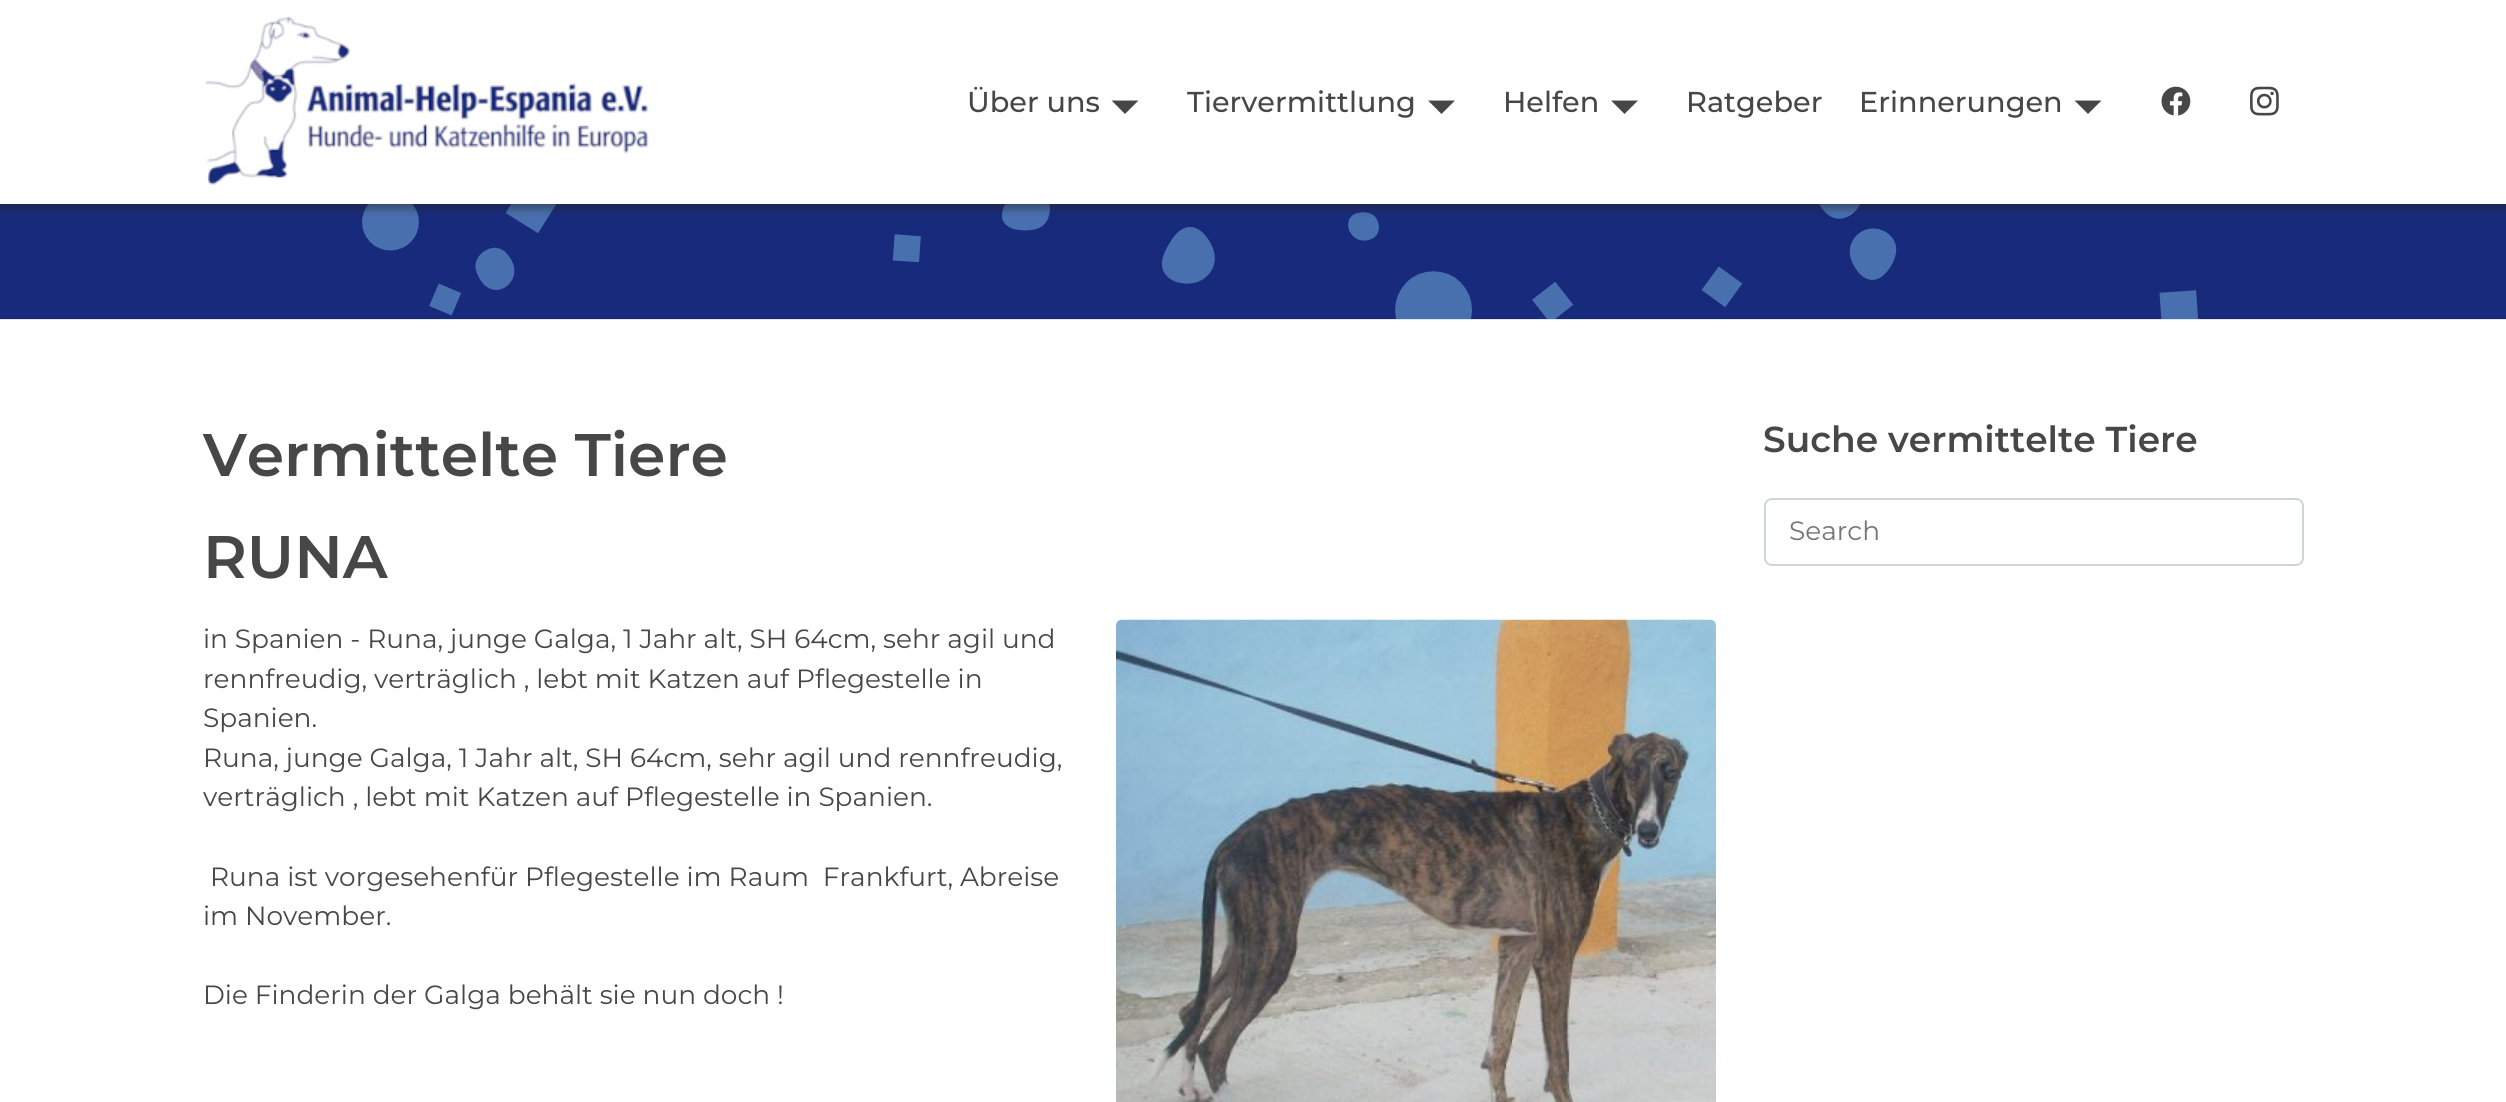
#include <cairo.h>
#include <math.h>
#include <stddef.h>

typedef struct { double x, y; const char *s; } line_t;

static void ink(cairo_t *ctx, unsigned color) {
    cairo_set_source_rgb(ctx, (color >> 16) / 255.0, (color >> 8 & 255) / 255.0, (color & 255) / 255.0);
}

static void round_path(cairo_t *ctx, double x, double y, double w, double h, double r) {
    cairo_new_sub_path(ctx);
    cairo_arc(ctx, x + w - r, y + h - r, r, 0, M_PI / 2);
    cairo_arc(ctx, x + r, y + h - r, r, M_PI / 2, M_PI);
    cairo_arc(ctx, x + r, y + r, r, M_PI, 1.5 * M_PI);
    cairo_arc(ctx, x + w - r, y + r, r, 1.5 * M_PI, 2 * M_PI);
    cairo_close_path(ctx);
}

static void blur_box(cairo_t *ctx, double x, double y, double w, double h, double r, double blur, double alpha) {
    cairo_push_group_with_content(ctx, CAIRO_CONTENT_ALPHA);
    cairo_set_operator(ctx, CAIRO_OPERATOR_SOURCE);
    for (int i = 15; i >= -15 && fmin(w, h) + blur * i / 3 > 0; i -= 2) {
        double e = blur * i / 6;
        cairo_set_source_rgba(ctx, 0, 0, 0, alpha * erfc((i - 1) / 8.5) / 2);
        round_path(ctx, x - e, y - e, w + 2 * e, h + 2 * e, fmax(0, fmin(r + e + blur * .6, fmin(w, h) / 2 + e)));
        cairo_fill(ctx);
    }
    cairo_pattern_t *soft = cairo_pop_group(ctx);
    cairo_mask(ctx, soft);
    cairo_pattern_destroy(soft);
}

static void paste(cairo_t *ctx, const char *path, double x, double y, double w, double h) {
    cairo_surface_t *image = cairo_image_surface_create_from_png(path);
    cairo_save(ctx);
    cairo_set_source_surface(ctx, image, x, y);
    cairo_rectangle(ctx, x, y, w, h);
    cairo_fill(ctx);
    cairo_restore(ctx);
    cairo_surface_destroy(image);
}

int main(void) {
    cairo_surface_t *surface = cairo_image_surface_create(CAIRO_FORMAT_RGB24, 2506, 1102);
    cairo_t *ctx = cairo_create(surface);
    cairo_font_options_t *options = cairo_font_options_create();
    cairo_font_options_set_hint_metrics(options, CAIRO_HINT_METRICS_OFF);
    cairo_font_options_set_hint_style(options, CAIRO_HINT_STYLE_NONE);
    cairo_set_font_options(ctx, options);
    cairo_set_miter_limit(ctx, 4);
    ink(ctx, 0xFFFFFF);
    cairo_paint(ctx);
    paste(ctx, "media/4.png", 0, 204, 2506, 116);
    ink(ctx, 0x262626);
    blur_box(ctx, 0, 5, 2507, 204, 0, 4.5, 0.5);
    ink(ctx, 0xFFFFFF);
    cairo_rectangle(ctx, 0, 0, 2506, 204);
    cairo_fill(ctx);
    paste(ctx, "media/1.png", 205, 16, 444, 169);
    cairo_select_font_face(ctx, "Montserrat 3 Thin", CAIRO_FONT_SLANT_NORMAL, CAIRO_FONT_WEIGHT_NORMAL);
    cairo_set_font_size(ctx, 28.75);
    ink(ctx, 0x474747);
    cairo_move_to(ctx, 967, 112);
    cairo_show_text(ctx, "Über uns");
    cairo_new_path(ctx);
    cairo_move_to(ctx, 1111.5, 100.5);
    cairo_line_to(ctx, 1138.5, 100.5);
    cairo_line_to(ctx, 1125, 114);
    cairo_close_path(ctx);
    cairo_fill(ctx);
    cairo_save(ctx);
    round_path(ctx, 1187, 74, 280, 57, 8);
    cairo_clip(ctx);
    cairo_move_to(ctx, 1187, 112);
    cairo_show_text(ctx, "Tiervermittlung");
    cairo_restore(ctx);
    cairo_new_path(ctx);
    cairo_move_to(ctx, 1428, 100.5);
    cairo_line_to(ctx, 1455, 100.5);
    cairo_line_to(ctx, 1441.5, 114);
    cairo_close_path(ctx);
    cairo_fill(ctx);
    cairo_move_to(ctx, 1503, 112);
    cairo_show_text(ctx, "Helfen");
    cairo_new_path(ctx);
    cairo_move_to(ctx, 1611, 100.5);
    cairo_line_to(ctx, 1638, 100.5);
    cairo_line_to(ctx, 1624.5, 114);
    cairo_close_path(ctx);
    cairo_fill(ctx);
    cairo_move_to(ctx, 1686, 112);
    cairo_show_text(ctx, "Ratgeber");
    cairo_move_to(ctx, 1859, 112);
    cairo_show_text(ctx, "Erinnerungen");
    cairo_new_path(ctx);
    cairo_move_to(ctx, 2074.5, 100.5);
    cairo_line_to(ctx, 2101.5, 100.5);
    cairo_line_to(ctx, 2088, 114);
    cairo_close_path(ctx);
    cairo_fill(ctx);
    paste(ctx, "media/2.png", 2161, 86, 30, 30);
    paste(ctx, "media/3.png", 2250, 86, 29, 30);
    cairo_select_font_face(ctx, "Montserrat Thin", CAIRO_FONT_SLANT_NORMAL, CAIRO_FONT_WEIGHT_NORMAL);
    cairo_set_font_size(ctx, 60);
    cairo_move_to(ctx, 203, 476);
    cairo_show_text(ctx, "Vermittelte Tiere");
    cairo_move_to(ctx, 203, 578);
    cairo_show_text(ctx, "RUNA");
    cairo_select_font_face(ctx, "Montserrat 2 Thin", CAIRO_FONT_SLANT_NORMAL, CAIRO_FONT_WEIGHT_NORMAL);
    cairo_set_font_size(ctx, 26.4);
    {
        static const line_t items[] = {
            {203, 648, "in Spanien - Runa, junge Galga, 1 Jahr alt, SH 64cm, sehr agil und"},
            {203, 688, "rennfreudig, verträglich , lebt mit Katzen auf Pflegestelle in"},
            {203, 727, "Spanien."},
            {203, 767, "Runa, junge Galga, 1 Jahr alt, SH 64cm, sehr agil und rennfreudig,"},
            {203, 806, "verträglich , lebt mit Katzen auf Pflegestelle in Spanien."},
            {210, 886, "Runa ist vorgesehenfür Pflegestelle im Raum  Frankfurt, Abreise"},
            {203, 925, "im November."},
            {203, 1004, "Die Finderin der Galga behält sie nun doch !"},
        };
        for (size_t i = 0; i < sizeof items / sizeof *items; i++) {
            cairo_move_to(ctx, items[i].x, items[i].y);
            cairo_show_text(ctx, items[i].s);
        }
    }
    paste(ctx, "media/5.png", 1116, 619, 600, 483);
    cairo_select_font_face(ctx, "Montserrat Thin", CAIRO_FONT_SLANT_NORMAL, CAIRO_FONT_WEIGHT_NORMAL);
    cairo_set_font_size(ctx, 36);
    cairo_move_to(ctx, 1763, 452);
    cairo_show_text(ctx, "Suche vermittelte Tiere");
    round_path(ctx, 1765, 499, 538, 66, 7);
    ink(ctx, 0xCED4DA);
    cairo_stroke(ctx);
    cairo_select_font_face(ctx, "Montserrat 2 Thin", CAIRO_FONT_SLANT_NORMAL, CAIRO_FONT_WEIGHT_NORMAL);
    cairo_set_font_size(ctx, 26.4);
    ink(ctx, 0x757575);
    cairo_move_to(ctx, 1789, 540);
    cairo_show_text(ctx, "Search");
    cairo_surface_write_to_png(surface, "image.png");
    cairo_font_options_destroy(options);
    cairo_destroy(ctx);
    cairo_surface_destroy(surface);
    return 0;
}
